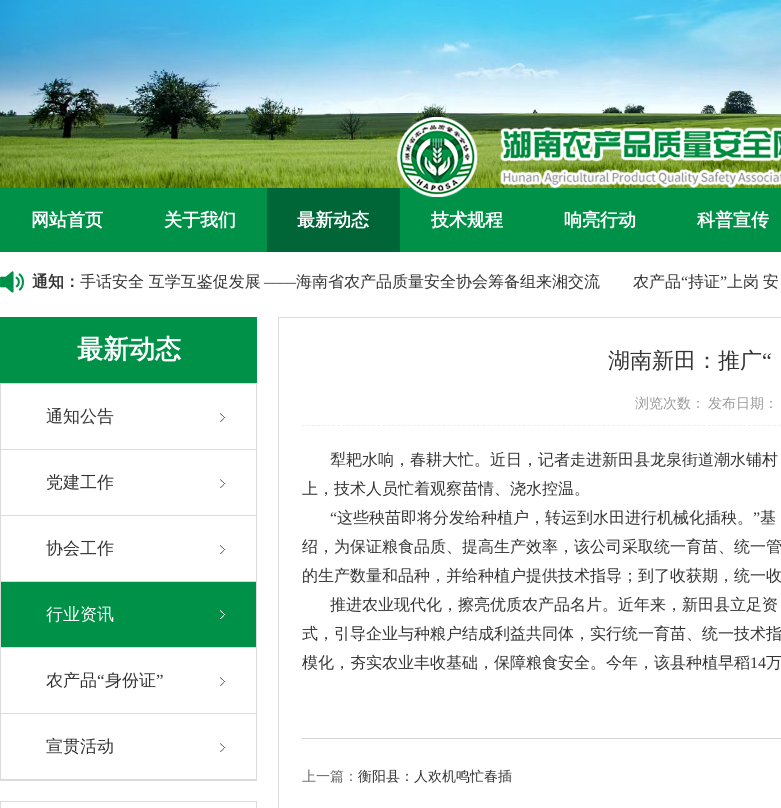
#include <cairo.h>
#include <math.h>
#include <stddef.h>

typedef struct { double x, y; const char *s; } line_t;

static void ink(cairo_t *ctx, unsigned color) {
    cairo_set_source_rgb(ctx, (color >> 16) / 255.0, (color >> 8 & 255) / 255.0, (color & 255) / 255.0);
}

static void write_spaced(cairo_t *ctx, double x, double y, const char *s, double letter, double word) {
    cairo_move_to(ctx, x, y);
    while (*s) {
        char ch[5] = {0};
        int n = 0;
        do ch[n++] = *s++; while ((*s & 0xC0) == 0x80);
        cairo_show_text(ctx, ch);
        cairo_rel_move_to(ctx, letter + word * (*ch == ' '), 0);
    }
}

static void paste(cairo_t *ctx, const char *path, double x, double y, double w, double h) {
    cairo_surface_t *image = cairo_image_surface_create_from_png(path);
    cairo_save(ctx);
    cairo_set_source_surface(ctx, image, x, y);
    cairo_rectangle(ctx, x, y, w, h);
    cairo_fill(ctx);
    cairo_restore(ctx);
    cairo_surface_destroy(image);
}

int main(void) {
    cairo_surface_t *surface = cairo_image_surface_create(CAIRO_FORMAT_RGB24, 781, 808);
    cairo_t *ctx = cairo_create(surface);
    cairo_font_options_t *options = cairo_font_options_create();
    cairo_font_options_set_hint_metrics(options, CAIRO_HINT_METRICS_OFF);
    cairo_font_options_set_hint_style(options, CAIRO_HINT_STYLE_NONE);
    cairo_set_font_options(ctx, options);
    cairo_set_miter_limit(ctx, 4);
    ink(ctx, 0xFFFFFF);
    cairo_paint(ctx);
    paste(ctx, "media/1.png", 0, 0, 781, 188);
    ink(ctx, 0x009148);
    cairo_rectangle(ctx, 0, 188, 781, 64);
    cairo_fill(ctx);
    paste(ctx, "media/2.png", 397, 117, 384, 80);
    cairo_select_font_face(ctx, "WenQuanYi Zen Hei", CAIRO_FONT_SLANT_NORMAL, CAIRO_FONT_WEIGHT_BOLD);
    cairo_set_font_size(ctx, 18);
    ink(ctx, 0xFFFFFF);
    cairo_move_to(ctx, 31, 226);
    cairo_show_text(ctx, "网站首页");
    cairo_move_to(ctx, 164, 226);
    cairo_show_text(ctx, "关于我们");
    ink(ctx, 0x006638);
    cairo_rectangle(ctx, 267, 188, 133, 64);
    cairo_fill(ctx);
    ink(ctx, 0xFFFFFF);
    {
        static const line_t items[] = {
            {297, 226, "最新动态"},
            {431, 226, "技术规程"},
            {564, 226, "响亮行动"},
            {697, 226, "科普宣传"},
        };
        for (size_t i = 0; i < sizeof items / sizeof *items; i++) {
            cairo_move_to(ctx, items[i].x, items[i].y);
            cairo_show_text(ctx, items[i].s);
        }
    }
    paste(ctx, "media/3.png", 0, 271, 24, 22);
    cairo_set_font_size(ctx, 16);
    ink(ctx, 0x333333);
    cairo_move_to(ctx, 32, 287);
    cairo_show_text(ctx, "通知：");
    cairo_select_font_face(ctx, "WenQuanYi Zen Hei Medium", CAIRO_FONT_SLANT_NORMAL, CAIRO_FONT_WEIGHT_NORMAL);
    cairo_move_to(ctx, 80, 287);
    cairo_show_text(ctx, "手话安全 互学互鉴促发展");
    cairo_select_font_face(ctx, "Liberation Serif", CAIRO_FONT_SLANT_NORMAL, CAIRO_FONT_WEIGHT_NORMAL);
    cairo_move_to(ctx, 264, 287);
    cairo_show_text(ctx, "——");
    cairo_select_font_face(ctx, "WenQuanYi Zen Hei Medium", CAIRO_FONT_SLANT_NORMAL, CAIRO_FONT_WEIGHT_NORMAL);
    cairo_move_to(ctx, 296, 287);
    cairo_show_text(ctx, "海南省农产品质量安全协会筹备组来湘交流");
    cairo_move_to(ctx, 633, 287);
    cairo_show_text(ctx, "农产品");
    cairo_select_font_face(ctx, "Liberation Serif", CAIRO_FONT_SLANT_NORMAL, CAIRO_FONT_WEIGHT_NORMAL);
    cairo_move_to(ctx, 681, 287);
    cairo_show_text(ctx, "“");
    cairo_select_font_face(ctx, "WenQuanYi Zen Hei Medium", CAIRO_FONT_SLANT_NORMAL, CAIRO_FONT_WEIGHT_NORMAL);
    cairo_move_to(ctx, 688, 287);
    cairo_show_text(ctx, "持证");
    cairo_select_font_face(ctx, "Liberation Serif", CAIRO_FONT_SLANT_NORMAL, CAIRO_FONT_WEIGHT_NORMAL);
    cairo_move_to(ctx, 720, 287);
    cairo_show_text(ctx, "”");
    cairo_select_font_face(ctx, "WenQuanYi Zen Hei Medium", CAIRO_FONT_SLANT_NORMAL, CAIRO_FONT_WEIGHT_NORMAL);
    write_spaced(ctx, 727, 287, "上岗 安", 0, -1);
    ink(ctx, 0x009148);
    cairo_rectangle(ctx, 0, 317, 257, 66);
    cairo_fill(ctx);
    cairo_select_font_face(ctx, "WenQuanYi Zen Hei", CAIRO_FONT_SLANT_NORMAL, CAIRO_FONT_WEIGHT_BOLD);
    cairo_set_font_size(ctx, 26);
    ink(ctx, 0xFFFFFF);
    cairo_move_to(ctx, 77, 358);
    cairo_show_text(ctx, "最新动态");
    cairo_rectangle(ctx, 0.5, 383.5, 256, 397);
    ink(ctx, 0xDBDBDB);
    cairo_set_line_width(ctx, 1);
    cairo_stroke(ctx);
    cairo_rectangle(ctx, 1, 449, 255, 1);
    cairo_fill(ctx);
    paste(ctx, "media/4.png", 220, 413, 6, 9);
    cairo_select_font_face(ctx, "WenQuanYi Zen Hei Medium", CAIRO_FONT_SLANT_NORMAL, CAIRO_FONT_WEIGHT_NORMAL);
    cairo_set_font_size(ctx, 17);
    ink(ctx, 0x333333);
    cairo_move_to(ctx, 46, 422);
    cairo_show_text(ctx, "通知公告");
    ink(ctx, 0xDBDBDB);
    cairo_rectangle(ctx, 1, 515, 255, 1);
    cairo_fill(ctx);
    paste(ctx, "media/4.png", 220, 479, 6, 9);
    ink(ctx, 0x333333);
    cairo_move_to(ctx, 46, 488);
    cairo_show_text(ctx, "党建工作");
    ink(ctx, 0xDBDBDB);
    cairo_rectangle(ctx, 1, 581, 255, 1);
    cairo_fill(ctx);
    paste(ctx, "media/4.png", 220, 545, 6, 9);
    ink(ctx, 0x333333);
    cairo_move_to(ctx, 46, 554);
    cairo_show_text(ctx, "协会工作");
    ink(ctx, 0x009148);
    cairo_rectangle(ctx, 1, 582, 255, 65);
    cairo_fill(ctx);
    ink(ctx, 0xDBDBDB);
    cairo_rectangle(ctx, 1, 647, 255, 1);
    cairo_fill(ctx);
    paste(ctx, "media/5.png", 220, 610, 6, 9);
    ink(ctx, 0xFFFFFF);
    cairo_move_to(ctx, 46, 620);
    cairo_show_text(ctx, "行业资讯");
    ink(ctx, 0xDBDBDB);
    cairo_rectangle(ctx, 1, 713, 255, 1);
    cairo_fill(ctx);
    paste(ctx, "media/4.png", 220, 677, 6, 9);
    ink(ctx, 0x333333);
    cairo_move_to(ctx, 46, 686);
    cairo_show_text(ctx, "农产品");
    cairo_select_font_face(ctx, "Liberation Serif", CAIRO_FONT_SLANT_NORMAL, CAIRO_FONT_WEIGHT_NORMAL);
    cairo_move_to(ctx, 97, 686);
    cairo_show_text(ctx, "“");
    cairo_select_font_face(ctx, "WenQuanYi Zen Hei Medium", CAIRO_FONT_SLANT_NORMAL, CAIRO_FONT_WEIGHT_NORMAL);
    cairo_move_to(ctx, 105, 686);
    cairo_show_text(ctx, "身份证");
    cairo_select_font_face(ctx, "Liberation Serif", CAIRO_FONT_SLANT_NORMAL, CAIRO_FONT_WEIGHT_NORMAL);
    cairo_move_to(ctx, 156, 686);
    cairo_show_text(ctx, "”");
    ink(ctx, 0xDBDBDB);
    cairo_rectangle(ctx, 1, 779, 255, 1);
    cairo_fill(ctx);
    paste(ctx, "media/4.png", 220, 743, 6, 9);
    cairo_select_font_face(ctx, "WenQuanYi Zen Hei Medium", CAIRO_FONT_SLANT_NORMAL, CAIRO_FONT_WEIGHT_NORMAL);
    ink(ctx, 0x333333);
    cairo_move_to(ctx, 46, 752);
    cairo_show_text(ctx, "宣贯活动");
    cairo_rectangle(ctx, 0.5, 801.5, 256, 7);
    ink(ctx, 0xDBDBDB);
    cairo_stroke(ctx);
    cairo_rectangle(ctx, 278.5, 317.5, 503, 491);
    cairo_stroke(ctx);
    cairo_set_font_size(ctx, 22);
    ink(ctx, 0x333333);
    cairo_move_to(ctx, 608, 368);
    cairo_show_text(ctx, "湖南新田：推广");
    cairo_select_font_face(ctx, "Liberation Serif", CAIRO_FONT_SLANT_NORMAL, CAIRO_FONT_WEIGHT_NORMAL);
    cairo_move_to(ctx, 762, 368);
    cairo_show_text(ctx, "“");
    cairo_new_path(ctx);
    cairo_move_to(ctx, 302, 425.5);
    cairo_line_to(ctx, 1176, 425.5);
    ink(ctx, 0xEEEEEE);
    cairo_set_dash(ctx, (double[]){3, 2.01}, 2, 0);
    cairo_stroke(ctx);
    cairo_select_font_face(ctx, "WenQuanYi Zen Hei Medium", CAIRO_FONT_SLANT_NORMAL, CAIRO_FONT_WEIGHT_NORMAL);
    cairo_set_font_size(ctx, 14);
    ink(ctx, 0x9A9A9A);
    cairo_move_to(ctx, 635, 408);
    cairo_show_text(ctx, "浏览次数：");
    cairo_move_to(ctx, 708, 408);
    cairo_show_text(ctx, "发布日期：");
    cairo_set_font_size(ctx, 16);
    ink(ctx, 0x333333);
    cairo_move_to(ctx, 330, 465);
    cairo_show_text(ctx, "犁耙水响，春耕大忙。近日，记者走进新田县龙泉街道潮水铺村");
    cairo_move_to(ctx, 302, 494);
    cairo_show_text(ctx, "上，技术人员忙着观察苗情、浇水控温。");
    cairo_select_font_face(ctx, "Liberation Serif", CAIRO_FONT_SLANT_NORMAL, CAIRO_FONT_WEIGHT_NORMAL);
    cairo_move_to(ctx, 330, 523);
    cairo_show_text(ctx, "“");
    cairo_select_font_face(ctx, "WenQuanYi Zen Hei Medium", CAIRO_FONT_SLANT_NORMAL, CAIRO_FONT_WEIGHT_NORMAL);
    cairo_move_to(ctx, 337, 523);
    cairo_show_text(ctx, "这些秧苗即将分发给种植户，转运到水田进行机械化插秧。");
    cairo_select_font_face(ctx, "Liberation Serif", CAIRO_FONT_SLANT_NORMAL, CAIRO_FONT_WEIGHT_NORMAL);
    cairo_move_to(ctx, 753, 523);
    cairo_show_text(ctx, "”");
    cairo_select_font_face(ctx, "WenQuanYi Zen Hei Medium", CAIRO_FONT_SLANT_NORMAL, CAIRO_FONT_WEIGHT_NORMAL);
    {
        static const line_t items[] = {
            {760, 523, "基"},
            {302, 552, "绍，为保证粮食品质、提高生产效率，该公司采取统一育苗、统一管"},
            {302, 581, "的生产数量和品种，并给种植户提供技术指导；到了收获期，统一收"},
            {330, 610, "推进农业现代化，擦亮优质农产品名片。近年来，新田县立足资"},
            {302, 639, "式，引导企业与种粮户结成利益共同体，实行统一育苗、统一技术指"},
            {302, 668, "模化，夯实农业丰收基础，保障粮食安全。今年，该县种植早稻"},
        };
        for (size_t i = 0; i < sizeof items / sizeof *items; i++) {
            cairo_move_to(ctx, items[i].x, items[i].y);
            cairo_show_text(ctx, items[i].s);
        }
    }
    cairo_select_font_face(ctx, "Liberation Serif", CAIRO_FONT_SLANT_NORMAL, CAIRO_FONT_WEIGHT_NORMAL);
    cairo_move_to(ctx, 750, 668);
    cairo_show_text(ctx, "14");
    cairo_select_font_face(ctx, "WenQuanYi Zen Hei Medium", CAIRO_FONT_SLANT_NORMAL, CAIRO_FONT_WEIGHT_NORMAL);
    cairo_move_to(ctx, 766, 668);
    cairo_show_text(ctx, "万");
    ink(ctx, 0xD4D4D4);
    cairo_rectangle(ctx, 302, 738, 479, 1);
    cairo_fill(ctx);
    cairo_set_font_size(ctx, 14);
    ink(ctx, 0x666666);
    cairo_move_to(ctx, 302, 781);
    cairo_show_text(ctx, "上一篇：");
    ink(ctx, 0x333333);
    cairo_move_to(ctx, 358, 781);
    cairo_show_text(ctx, "衡阳县：人欢机鸣忙春插");
    cairo_surface_write_to_png(surface, "image.png");
    cairo_font_options_destroy(options);
    cairo_destroy(ctx);
    cairo_surface_destroy(surface);
    return 0;
}
